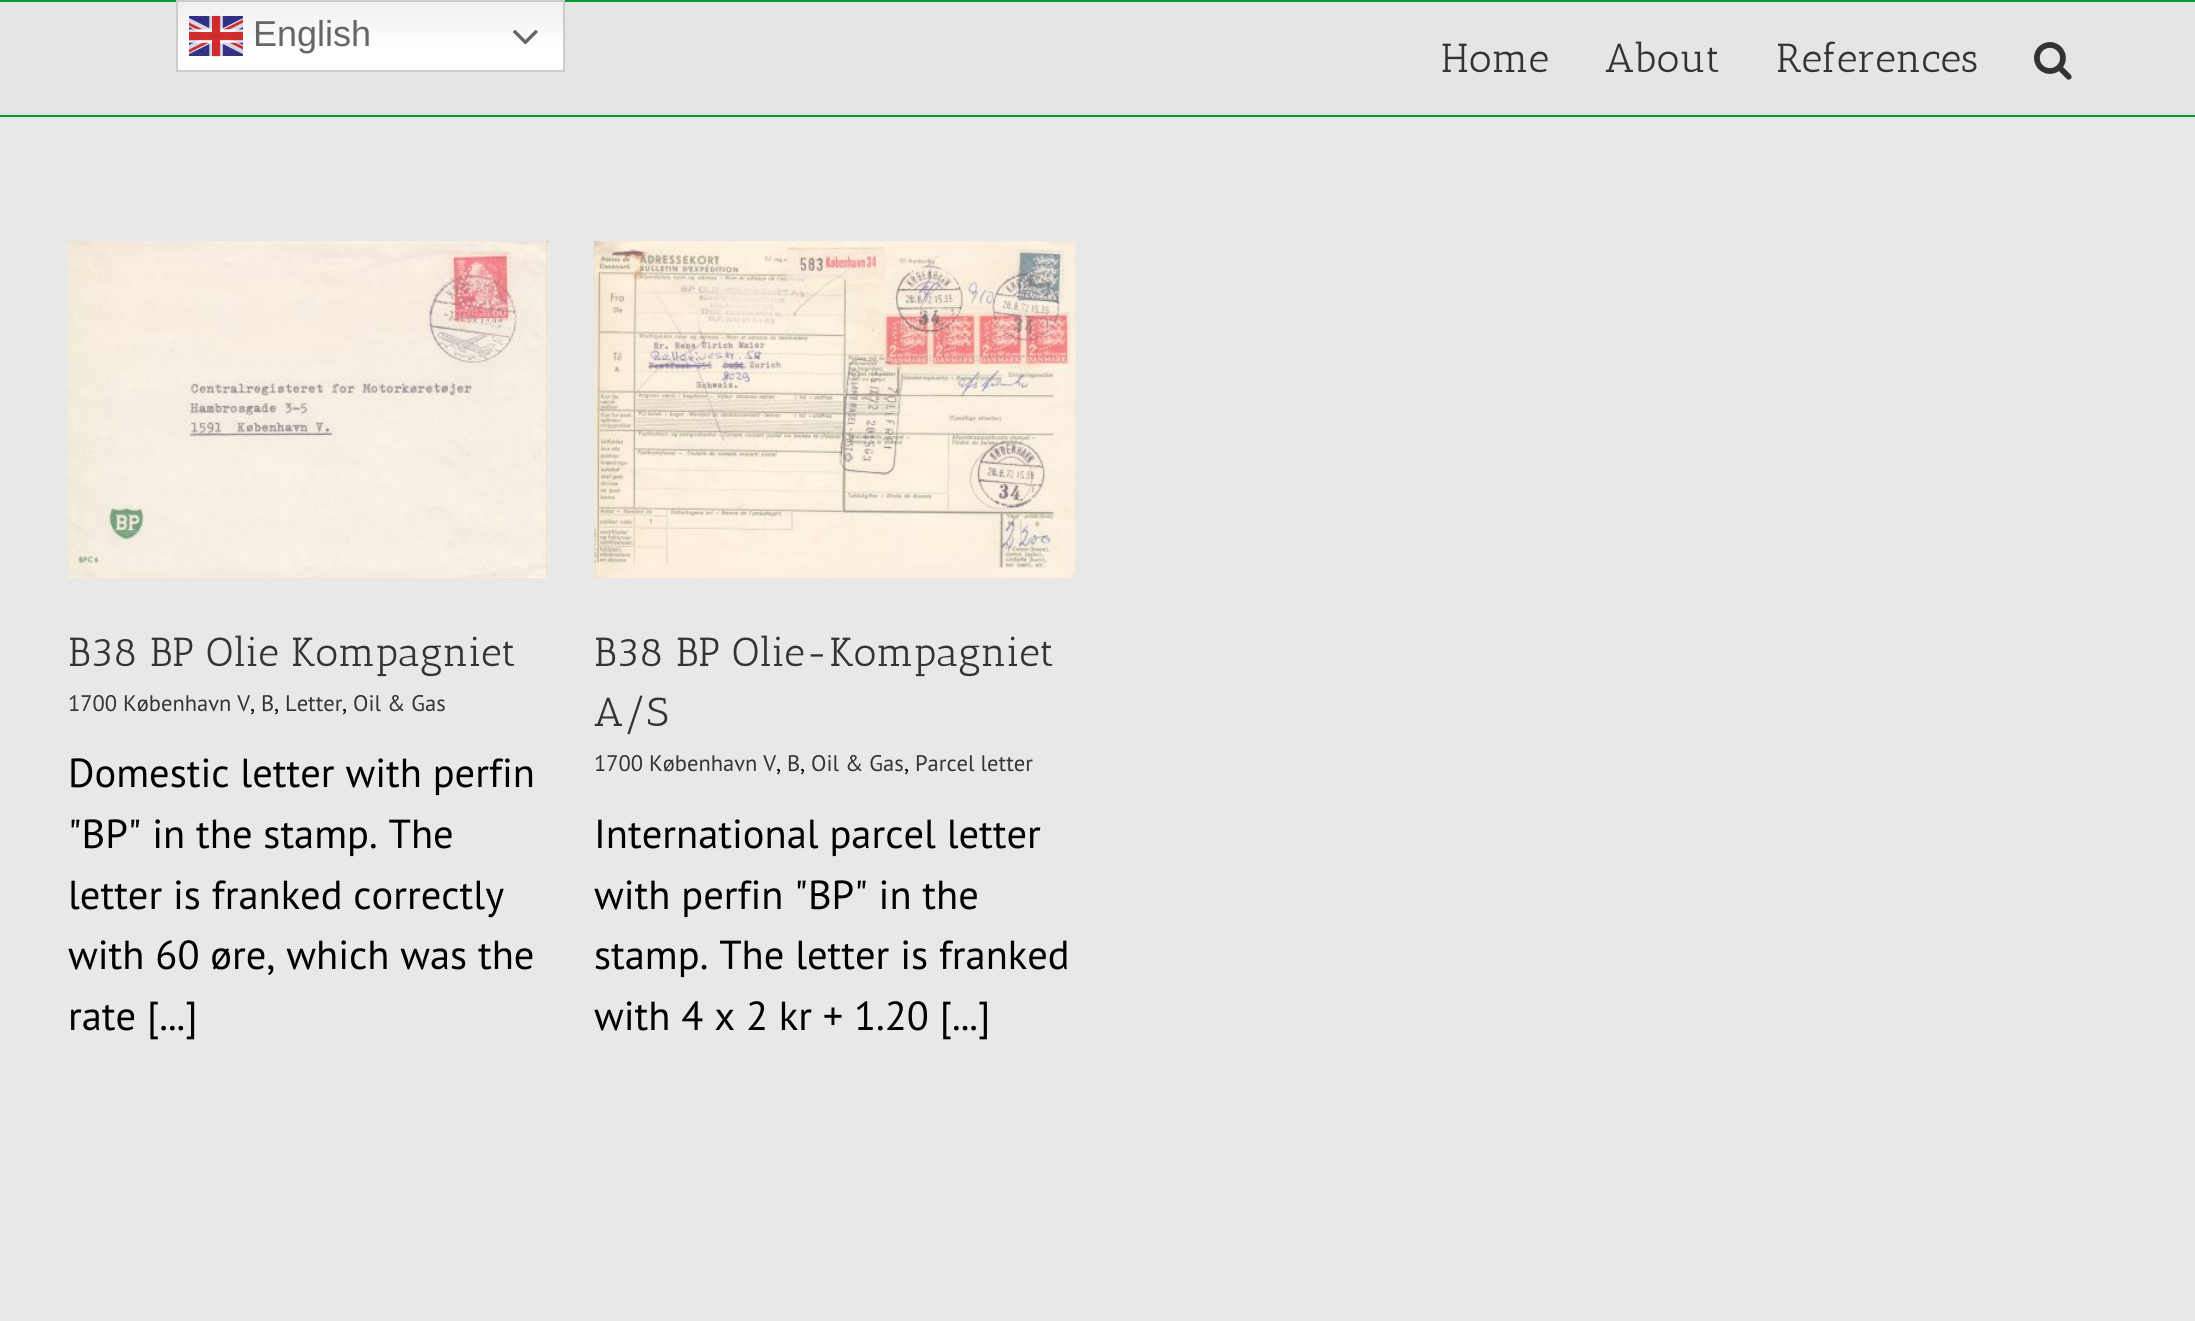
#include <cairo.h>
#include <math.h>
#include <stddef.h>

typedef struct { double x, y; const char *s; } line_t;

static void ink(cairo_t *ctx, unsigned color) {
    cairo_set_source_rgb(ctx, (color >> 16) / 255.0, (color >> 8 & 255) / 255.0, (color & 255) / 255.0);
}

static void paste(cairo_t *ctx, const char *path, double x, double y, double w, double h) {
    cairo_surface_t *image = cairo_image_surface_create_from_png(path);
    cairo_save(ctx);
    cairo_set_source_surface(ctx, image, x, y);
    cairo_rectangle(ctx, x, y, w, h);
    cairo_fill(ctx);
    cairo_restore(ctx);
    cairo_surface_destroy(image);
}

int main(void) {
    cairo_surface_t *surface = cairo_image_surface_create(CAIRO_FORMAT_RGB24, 2195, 1321);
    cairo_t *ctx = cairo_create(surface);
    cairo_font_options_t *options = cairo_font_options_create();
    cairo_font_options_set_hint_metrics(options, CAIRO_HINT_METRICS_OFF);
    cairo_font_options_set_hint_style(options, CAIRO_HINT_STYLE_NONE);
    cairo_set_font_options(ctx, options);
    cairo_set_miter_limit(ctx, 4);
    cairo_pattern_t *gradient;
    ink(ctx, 0xE8E8E8);
    cairo_paint(ctx);
    ink(ctx, 0xE5E5E5);
    cairo_rectangle(ctx, 0, 2, 2195, 113);
    cairo_fill(ctx);
    gradient = cairo_pattern_create_linear(370, 0, 370, 72);
    cairo_pattern_add_color_stop_rgba(gradient, 0, 0.937, 0.937, 0.937, 1);
    cairo_pattern_add_color_stop_rgba(gradient, 0.7, 1, 1, 1, 1);
    cairo_set_source(ctx, gradient);
    cairo_pattern_destroy(gradient);
    cairo_rectangle(ctx, 178, 2, 385, 68);
    cairo_fill(ctx);
    ink(ctx, 0x009933);
    cairo_rectangle(ctx, 0, 0, 2195, 2);
    cairo_fill(ctx);
    cairo_rectangle(ctx, 177, 1, 387, 70);
    ink(ctx, 0xCCCCCC);
    cairo_stroke(ctx);
    paste(ctx, "media/1.png", 189, 15, 54, 42);
    cairo_select_font_face(ctx, "Liberation Sans", CAIRO_FONT_SLANT_NORMAL, CAIRO_FONT_WEIGHT_NORMAL);
    cairo_set_font_size(ctx, 36);
    ink(ctx, 0x666666);
    cairo_move_to(ctx, 253, 46);
    cairo_show_text(ctx, "English");
    paste(ctx, "media/2.png", 513, 30, 25, 15);
    ink(ctx, 0x009933);
    cairo_rectangle(ctx, 0, 115, 2195, 2);
    cairo_fill(ctx);
    cairo_select_font_face(ctx, "Antic Slab", CAIRO_FONT_SLANT_NORMAL, CAIRO_FONT_WEIGHT_NORMAL);
    cairo_set_font_size(ctx, 40.5);
    ink(ctx, 0x333333);
    {
        static const line_t items[] = {
            {1441, 72, "Home"},
            {1605, 72, "About"},
            {1776, 72, "References"},
        };
        for (size_t i = 0; i < sizeof items / sizeof *items; i++) {
            cairo_move_to(ctx, items[i].x, items[i].y);
            cairo_show_text(ctx, items[i].s);
        }
    }
    paste(ctx, "media/3.png", 2034, 42, 38, 38);
    paste(ctx, "media/4.png", 67, 241, 482, 337);
    cairo_move_to(ctx, 68, 666);
    cairo_show_text(ctx, "B38 BP Olie Kompagniet");
    cairo_select_font_face(ctx, "PT Sans", CAIRO_FONT_SLANT_NORMAL, CAIRO_FONT_WEIGHT_NORMAL);
    cairo_set_font_size(ctx, 22.5);
    cairo_move_to(ctx, 68, 711);
    cairo_show_text(ctx, "1700 København V");
    ink(ctx, 0x000000);
    cairo_move_to(ctx, 250, 711);
    cairo_show_text(ctx, ",");
    ink(ctx, 0x333333);
    cairo_move_to(ctx, 261, 711);
    cairo_show_text(ctx, "B");
    ink(ctx, 0x000000);
    cairo_move_to(ctx, 274, 711);
    cairo_show_text(ctx, ",");
    ink(ctx, 0x333333);
    cairo_move_to(ctx, 285, 711);
    cairo_show_text(ctx, "Letter");
    ink(ctx, 0x000000);
    cairo_move_to(ctx, 342, 711);
    cairo_show_text(ctx, ",");
    ink(ctx, 0x333333);
    cairo_move_to(ctx, 353, 711);
    cairo_show_text(ctx, "Oil & Gas");
    cairo_set_font_size(ctx, 40.5);
    ink(ctx, 0x000000);
    {
        static const line_t items[] = {
            {68, 787, "Domestic letter with perfin"},
            {68, 848, "\"BP\" in the stamp. The"},
            {68, 909, "letter is franked correctly"},
            {68, 969, "with 60 øre, which was the"},
            {68, 1030, "rate [...]"},
        };
        for (size_t i = 0; i < sizeof items / sizeof *items; i++) {
            cairo_move_to(ctx, items[i].x, items[i].y);
            cairo_show_text(ctx, items[i].s);
        }
    }
    paste(ctx, "media/5.png", 594, 241, 482, 337);
    cairo_select_font_face(ctx, "Antic Slab", CAIRO_FONT_SLANT_NORMAL, CAIRO_FONT_WEIGHT_NORMAL);
    ink(ctx, 0x333333);
    cairo_move_to(ctx, 594, 666);
    cairo_show_text(ctx, "B38 BP Olie-Kompagniet");
    cairo_move_to(ctx, 594, 726);
    cairo_show_text(ctx, "A/S");
    cairo_select_font_face(ctx, "PT Sans", CAIRO_FONT_SLANT_NORMAL, CAIRO_FONT_WEIGHT_NORMAL);
    cairo_set_font_size(ctx, 22.5);
    cairo_move_to(ctx, 594, 771);
    cairo_show_text(ctx, "1700 København V");
    ink(ctx, 0x000000);
    cairo_move_to(ctx, 776, 771);
    cairo_show_text(ctx, ",");
    ink(ctx, 0x333333);
    cairo_move_to(ctx, 787, 771);
    cairo_show_text(ctx, "B");
    ink(ctx, 0x000000);
    cairo_move_to(ctx, 800, 771);
    cairo_show_text(ctx, ",");
    ink(ctx, 0x333333);
    cairo_move_to(ctx, 811, 771);
    cairo_show_text(ctx, "Oil & Gas");
    ink(ctx, 0x000000);
    cairo_move_to(ctx, 904, 771);
    cairo_show_text(ctx, ",");
    ink(ctx, 0x333333);
    cairo_move_to(ctx, 915, 771);
    cairo_show_text(ctx, "Parcel letter");
    cairo_set_font_size(ctx, 40.5);
    ink(ctx, 0x000000);
    {
        static const line_t items[] = {
            {594, 848, "International parcel letter"},
            {594, 909, "with perfin \"BP\" in the"},
            {594, 969, "stamp. The letter is franked"},
            {594, 1030, "with 4 x 2 kr + 1.20 [...]"},
        };
        for (size_t i = 0; i < sizeof items / sizeof *items; i++) {
            cairo_move_to(ctx, items[i].x, items[i].y);
            cairo_show_text(ctx, items[i].s);
        }
    }
    cairo_surface_write_to_png(surface, "image.png");
    cairo_font_options_destroy(options);
    cairo_destroy(ctx);
    cairo_surface_destroy(surface);
    return 0;
}
